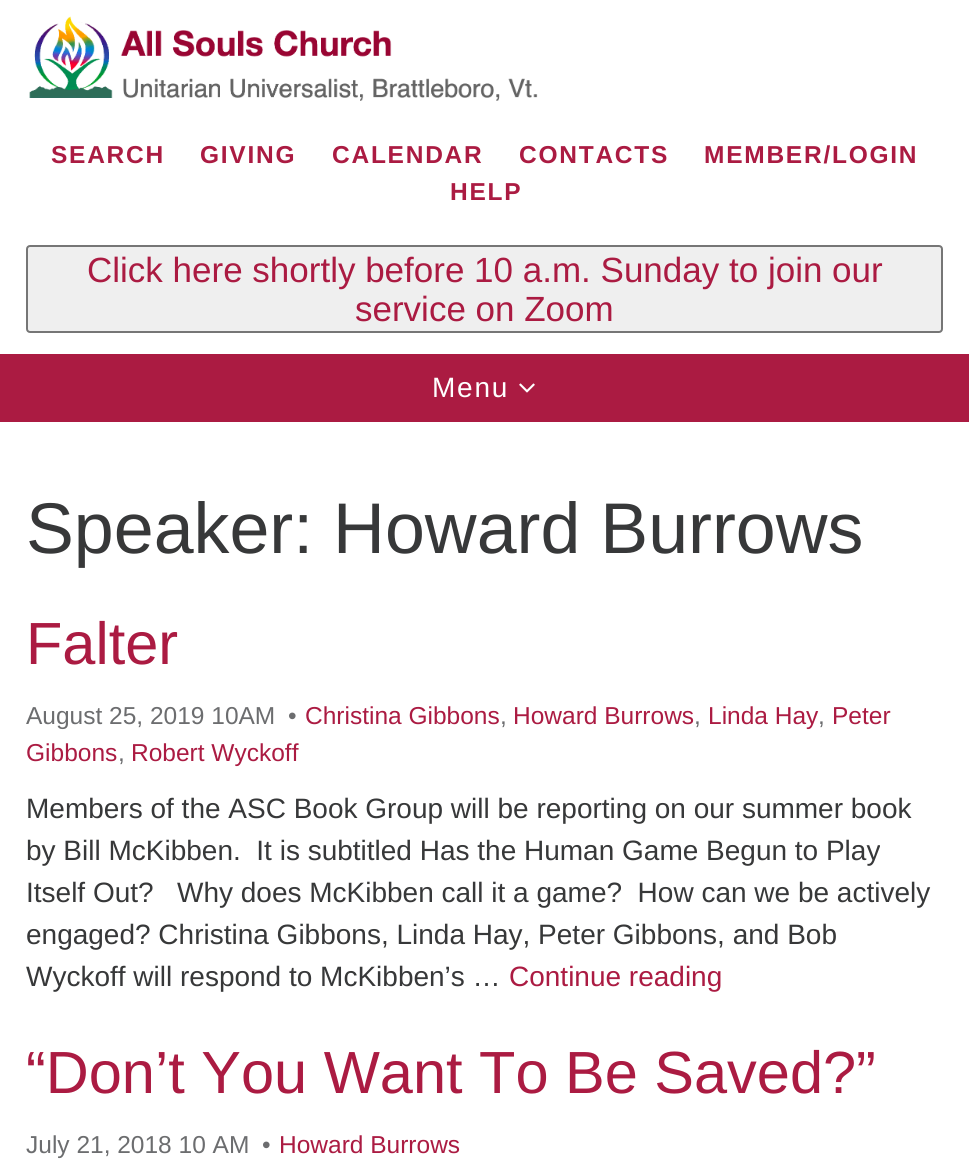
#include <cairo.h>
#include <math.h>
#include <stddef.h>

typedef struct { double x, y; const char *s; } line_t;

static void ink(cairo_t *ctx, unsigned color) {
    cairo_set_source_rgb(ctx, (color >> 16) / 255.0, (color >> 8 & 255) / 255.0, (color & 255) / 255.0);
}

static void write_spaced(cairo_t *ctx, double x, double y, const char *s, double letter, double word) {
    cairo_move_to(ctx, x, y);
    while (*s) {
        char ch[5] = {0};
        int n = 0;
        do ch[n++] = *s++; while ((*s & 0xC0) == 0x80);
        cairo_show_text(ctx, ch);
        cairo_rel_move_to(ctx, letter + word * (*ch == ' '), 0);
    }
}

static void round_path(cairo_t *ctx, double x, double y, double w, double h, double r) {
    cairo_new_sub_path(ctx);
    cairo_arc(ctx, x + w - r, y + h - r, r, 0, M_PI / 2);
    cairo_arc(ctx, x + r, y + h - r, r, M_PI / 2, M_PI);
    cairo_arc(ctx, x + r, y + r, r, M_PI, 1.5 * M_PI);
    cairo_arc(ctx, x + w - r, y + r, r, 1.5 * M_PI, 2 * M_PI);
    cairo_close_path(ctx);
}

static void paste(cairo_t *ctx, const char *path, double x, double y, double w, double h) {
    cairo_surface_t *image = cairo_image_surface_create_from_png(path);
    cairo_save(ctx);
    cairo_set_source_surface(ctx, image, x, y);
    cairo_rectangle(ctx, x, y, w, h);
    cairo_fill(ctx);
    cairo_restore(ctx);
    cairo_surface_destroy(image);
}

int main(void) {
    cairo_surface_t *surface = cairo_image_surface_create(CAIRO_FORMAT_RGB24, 969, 1176);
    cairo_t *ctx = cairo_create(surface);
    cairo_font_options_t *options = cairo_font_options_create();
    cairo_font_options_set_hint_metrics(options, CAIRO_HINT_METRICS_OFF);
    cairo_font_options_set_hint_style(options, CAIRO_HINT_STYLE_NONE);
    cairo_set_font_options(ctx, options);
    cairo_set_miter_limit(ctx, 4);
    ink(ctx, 0xFFFFFF);
    cairo_paint(ctx);
    paste(ctx, "media/1.png", 29, 16, 509, 85);
    cairo_select_font_face(ctx, "Liberation Sans", CAIRO_FONT_SLANT_NORMAL, CAIRO_FONT_WEIGHT_BOLD);
    cairo_set_font_size(ctx, 24.5);
    ink(ctx, 0xAB1B42);
    {
        static const line_t items[] = {
            {51, 163, "SEARCH"},
            {200, 163, "GIVING"},
            {332, 163, "CALENDAR"},
            {519, 163, "CONTACTS"},
            {704, 163, "MEMBER/LOGIN"},
            {450, 200, "HELP"},
        };
        for (size_t i = 0; i < sizeof items / sizeof *items; i++) {
            write_spaced(ctx, items[i].x, items[i].y, items[i].s, 1.75, 0);
        }
    }
    ink(ctx, 0xEFEFEF);
    round_path(ctx, 27, 246, 915, 86, 3);
    cairo_fill_preserve(ctx);
    ink(ctx, 0x767676);
    cairo_stroke(ctx);
    cairo_select_font_face(ctx, "Liberation Sans", CAIRO_FONT_SLANT_NORMAL, CAIRO_FONT_WEIGHT_NORMAL);
    cairo_set_font_size(ctx, 35);
    ink(ctx, 0xAB1B42);
    cairo_move_to(ctx, 87, 282);
    cairo_show_text(ctx, "Click here shortly before 10 a.m. Sunday to join our");
    cairo_move_to(ctx, 355, 321);
    cairo_show_text(ctx, "service on Zoom");
    cairo_rectangle(ctx, 0, 354, 969, 68);
    cairo_fill(ctx);
    cairo_set_font_size(ctx, 28);
    ink(ctx, 0xFFFFFF);
    write_spaced(ctx, 432, 397, "Menu", 1.75, 0);
    paste(ctx, "media/2.png", 519, 383, 16, 10);
    cairo_set_font_size(ctx, 71.75);
    ink(ctx, 0x373839);
    cairo_move_to(ctx, 26, 553);
    cairo_show_text(ctx, "Speaker: Howard Burrows");
    cairo_set_font_size(ctx, 59.5);
    ink(ctx, 0xAB1B42);
    cairo_move_to(ctx, 26, 664);
    cairo_show_text(ctx, "Falter");
    cairo_set_font_size(ctx, 24.5);
    ink(ctx, 0x6C6D6F);
    cairo_move_to(ctx, 26, 724);
    cairo_show_text(ctx, "August 25, 2019 10AM");
    cairo_move_to(ctx, 288, 724);
    cairo_show_text(ctx, "•");
    ink(ctx, 0xAB1B42);
    {
        static const line_t items[] = {
            {305, 724, "Christina Gibbons"},
            {513, 724, "Howard Burrows"},
            {708, 724, "Linda Hay"},
            {832, 724, "Peter"},
        };
        for (size_t i = 0; i < sizeof items / sizeof *items; i++) {
            cairo_move_to(ctx, items[i].x, items[i].y);
            cairo_show_text(ctx, items[i].s);
        }
    }
    ink(ctx, 0x6C6D6F);
    {
        static const line_t items[] = {
            {500, 724, ","},
            {694, 724, ","},
            {818, 724, ","},
        };
        for (size_t i = 0; i < sizeof items / sizeof *items; i++) {
            cairo_move_to(ctx, items[i].x, items[i].y);
            cairo_show_text(ctx, items[i].s);
        }
    }
    ink(ctx, 0xAB1B42);
    cairo_move_to(ctx, 26, 761);
    cairo_show_text(ctx, "Gibbons");
    ink(ctx, 0x6C6D6F);
    cairo_move_to(ctx, 118, 761);
    cairo_show_text(ctx, ",");
    ink(ctx, 0xAB1B42);
    cairo_move_to(ctx, 131, 761);
    cairo_show_text(ctx, "Robert Wyckoff");
    cairo_set_font_size(ctx, 28);
    ink(ctx, 0x373839);
    {
        static const line_t items[] = {
            {26, 818, "Members of the ASC Book Group will be reporting on our summer book"},
            {26, 860, "by Bill McKibben.  It is subtitled Has the Human Game Begun to Play"},
            {26, 902, "Itself Out?   Why does McKibben call it a game?  How can we be actively"},
            {26, 944, "engaged? Christina Gibbons, Linda Hay, Peter Gibbons, and Bob"},
            {26, 986, "Wyckoff will respond to McKibben’s …"},
        };
        for (size_t i = 0; i < sizeof items / sizeof *items; i++) {
            cairo_move_to(ctx, items[i].x, items[i].y);
            cairo_show_text(ctx, items[i].s);
        }
    }
    ink(ctx, 0xAB1B42);
    cairo_move_to(ctx, 509, 986);
    cairo_show_text(ctx, "Continue reading");
    cairo_set_font_size(ctx, 59.5);
    cairo_move_to(ctx, 26, 1093);
    cairo_show_text(ctx, "“Don’t You Want To Be Saved?”");
    cairo_set_font_size(ctx, 24.5);
    ink(ctx, 0x6C6D6F);
    cairo_move_to(ctx, 26, 1153);
    cairo_show_text(ctx, "July 21, 2018 10 AM");
    cairo_move_to(ctx, 262, 1153);
    cairo_show_text(ctx, "•");
    ink(ctx, 0xAB1B42);
    cairo_move_to(ctx, 279, 1153);
    cairo_show_text(ctx, "Howard Burrows");
    cairo_surface_write_to_png(surface, "image.png");
    cairo_font_options_destroy(options);
    cairo_destroy(ctx);
    cairo_surface_destroy(surface);
    return 0;
}
